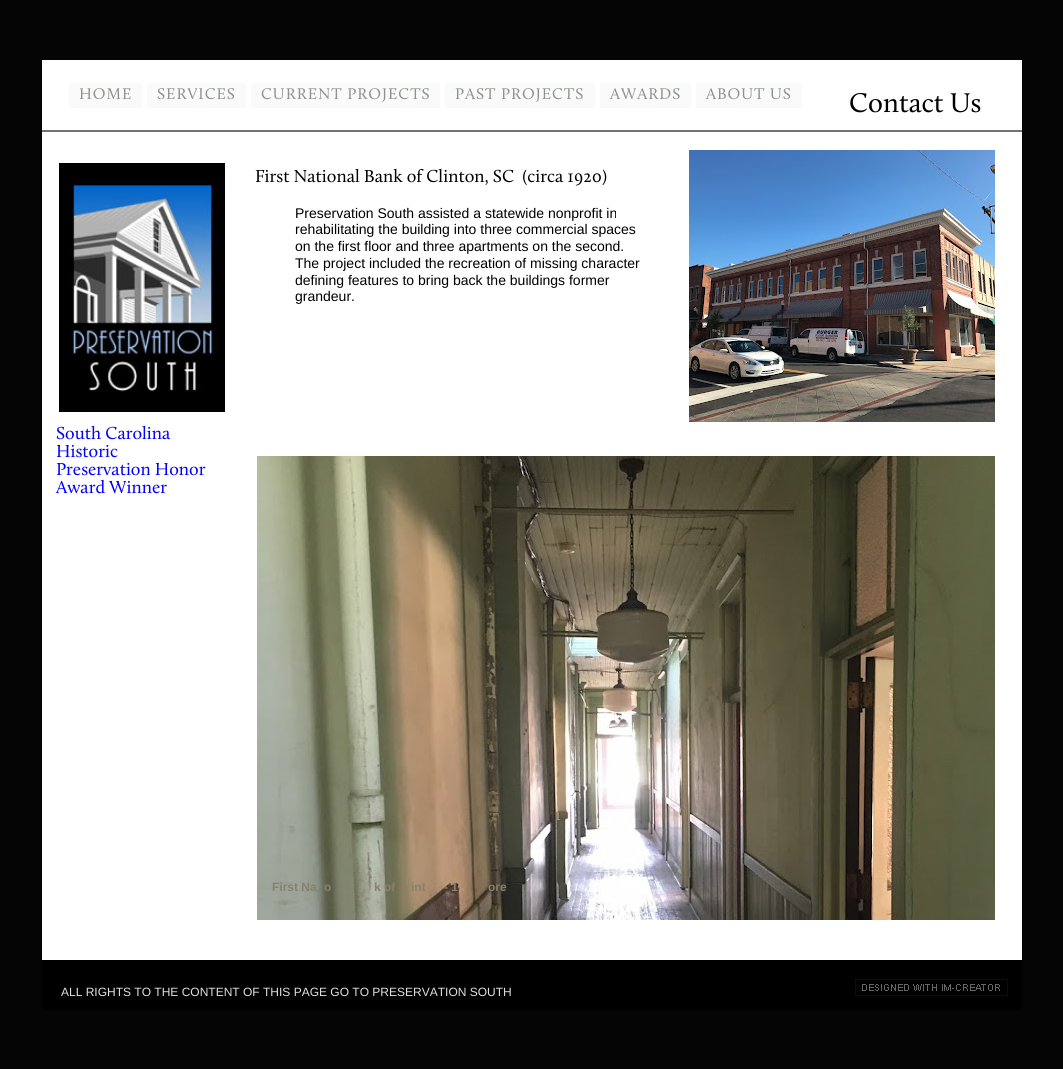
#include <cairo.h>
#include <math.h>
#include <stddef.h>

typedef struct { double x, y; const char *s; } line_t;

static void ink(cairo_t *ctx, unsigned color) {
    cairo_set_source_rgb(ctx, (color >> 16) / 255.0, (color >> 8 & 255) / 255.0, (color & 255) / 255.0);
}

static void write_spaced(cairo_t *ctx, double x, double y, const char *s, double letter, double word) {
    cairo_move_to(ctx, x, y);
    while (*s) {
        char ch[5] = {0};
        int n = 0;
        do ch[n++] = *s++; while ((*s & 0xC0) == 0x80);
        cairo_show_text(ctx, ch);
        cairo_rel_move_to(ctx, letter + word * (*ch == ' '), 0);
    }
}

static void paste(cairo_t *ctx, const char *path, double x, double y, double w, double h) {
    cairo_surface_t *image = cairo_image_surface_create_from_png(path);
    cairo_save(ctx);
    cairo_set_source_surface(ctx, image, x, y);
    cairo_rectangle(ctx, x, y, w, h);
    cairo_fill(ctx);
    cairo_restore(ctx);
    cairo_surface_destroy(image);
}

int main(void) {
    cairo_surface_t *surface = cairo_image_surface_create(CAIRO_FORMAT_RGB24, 1063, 1069);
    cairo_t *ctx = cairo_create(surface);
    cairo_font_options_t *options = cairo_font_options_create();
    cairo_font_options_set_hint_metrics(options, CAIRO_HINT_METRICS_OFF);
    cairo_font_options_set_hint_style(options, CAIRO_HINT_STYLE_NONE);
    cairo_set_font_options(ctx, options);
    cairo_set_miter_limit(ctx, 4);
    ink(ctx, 0x050505);
    cairo_paint(ctx);
    ink(ctx, 0xFFFFFF);
    cairo_rectangle(ctx, 42, 60, 980, 900);
    cairo_fill(ctx);
    ink(ctx, 0xFAFAFA);
    cairo_rectangle(ctx, 69, 83, 73, 25);
    cairo_fill(ctx);
    cairo_select_font_face(ctx, "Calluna", CAIRO_FONT_SLANT_NORMAL, CAIRO_FONT_WEIGHT_NORMAL);
    cairo_set_font_size(ctx, 16);
    ink(ctx, 0x8B948B);
    write_spaced(ctx, 79, 99, "HOME", 1, 0);
    ink(ctx, 0xFAFAFA);
    cairo_rectangle(ctx, 147, 83, 99, 25);
    cairo_fill(ctx);
    ink(ctx, 0x8B948B);
    write_spaced(ctx, 157, 99, "SERVICES", 1, 0);
    ink(ctx, 0xFAFAFA);
    cairo_rectangle(ctx, 251, 83, 189, 25);
    cairo_fill(ctx);
    ink(ctx, 0x8B948B);
    write_spaced(ctx, 261, 99, "CURRENT PROJECTS", 1, 0);
    ink(ctx, 0xFAFAFA);
    cairo_rectangle(ctx, 445, 83, 150, 25);
    cairo_fill(ctx);
    ink(ctx, 0x8B948B);
    write_spaced(ctx, 455, 99, "PAST PROJECTS", 1, 0);
    ink(ctx, 0xFAFAFA);
    cairo_rectangle(ctx, 600, 83, 91, 25);
    cairo_fill(ctx);
    ink(ctx, 0x8B948B);
    write_spaced(ctx, 610, 99, "AWARDS", 1, 0);
    ink(ctx, 0xFAFAFA);
    cairo_rectangle(ctx, 696, 83, 106, 25);
    cairo_fill(ctx);
    ink(ctx, 0x8B948B);
    write_spaced(ctx, 706, 99, "ABOUT US", 1, 0);
    cairo_set_font_size(ctx, 28);
    ink(ctx, 0x000000);
    cairo_move_to(ctx, 849, 112);
    cairo_show_text(ctx, "Contact Us");
    ink(ctx, 0x737273);
    cairo_rectangle(ctx, 42, 130, 980, 2);
    cairo_fill(ctx);
    paste(ctx, "media/1.png", 59, 163, 166, 249);
    cairo_set_font_size(ctx, 18);
    ink(ctx, 0x000000);
    cairo_move_to(ctx, 255, 182);
    cairo_show_text(ctx, "First National Bank of Clinton, SC  (circa 1920)");
    cairo_select_font_face(ctx, "Liberation Sans", CAIRO_FONT_SLANT_NORMAL, CAIRO_FONT_WEIGHT_NORMAL);
    cairo_set_font_size(ctx, 14);
    {
        static const line_t items[] = {
            {295, 218, "Preservation South assisted a statewide nonprofit in"},
            {295, 234, "rehabilitating the building into three commercial spaces"},
            {295, 251, "on the first floor and three apartments on the second."},
            {295, 268, "The project included the recreation of missing character"},
            {295, 285, "defining features to bring back the buildings former"},
            {295, 301, "grandeur."},
        };
        for (size_t i = 0; i < sizeof items / sizeof *items; i++) {
            cairo_move_to(ctx, items[i].x, items[i].y);
            cairo_show_text(ctx, items[i].s);
        }
    }
    paste(ctx, "media/2.png", 689, 150, 306, 272);
    cairo_select_font_face(ctx, "Calluna", CAIRO_FONT_SLANT_NORMAL, CAIRO_FONT_WEIGHT_NORMAL);
    cairo_set_font_size(ctx, 18);
    ink(ctx, 0x0000FF);
    {
        static const line_t items[] = {
            {56, 439, "South Carolina"},
            {56, 457, "Historic"},
            {56, 475, "Preservation Honor"},
            {56, 493, "Award Winner"},
        };
        for (size_t i = 0; i < sizeof items / sizeof *items; i++) {
            cairo_move_to(ctx, items[i].x, items[i].y);
            cairo_show_text(ctx, items[i].s);
        }
    }
    ink(ctx, 0xFFFFFF);
    cairo_rectangle(ctx, 150, 474, 1, 1);
    cairo_fill(ctx);
    paste(ctx, "media/3.png", 257, 456, 738, 464);
    cairo_select_font_face(ctx, "Liberation Sans", CAIRO_FONT_SLANT_NORMAL, CAIRO_FONT_WEIGHT_NORMAL);
    cairo_set_font_size(ctx, 11);
    ink(ctx, 0x443F31);
    cairo_move_to(ctx, 618, 485);
    cairo_show_text(ctx, "1/7");
    cairo_select_font_face(ctx, "Liberation Sans", CAIRO_FONT_SLANT_NORMAL, CAIRO_FONT_WEIGHT_BOLD);
    cairo_set_font_size(ctx, 12);
    ink(ctx, 0x86806D);
    {
        static const line_t items[] = {
            {272, 891, "First Na"},
            {324, 891, "o"},
            {374, 891, "k of"},
            {411, 891, "int"},
            {444, 891, "- 1"},
            {488, 891, "ore"},
        };
        for (size_t i = 0; i < sizeof items / sizeof *items; i++) {
            cairo_move_to(ctx, items[i].x, items[i].y);
            cairo_show_text(ctx, items[i].s);
        }
    }
    ink(ctx, 0x000000);
    cairo_rectangle(ctx, 42, 960, 980, 50);
    cairo_fill(ctx);
    cairo_select_font_face(ctx, "Liberation Sans", CAIRO_FONT_SLANT_NORMAL, CAIRO_FONT_WEIGHT_NORMAL);
    ink(ctx, 0xE0E0E0);
    cairo_move_to(ctx, 61, 996);
    cairo_show_text(ctx, "ALL RIGHTS TO THE CONTENT OF THIS PAGE GO TO PRESERVATION SOUTH");
    paste(ctx, "media/4.png", 855, 979, 153, 17);
    cairo_surface_write_to_png(surface, "image.png");
    cairo_font_options_destroy(options);
    cairo_destroy(ctx);
    cairo_surface_destroy(surface);
    return 0;
}
